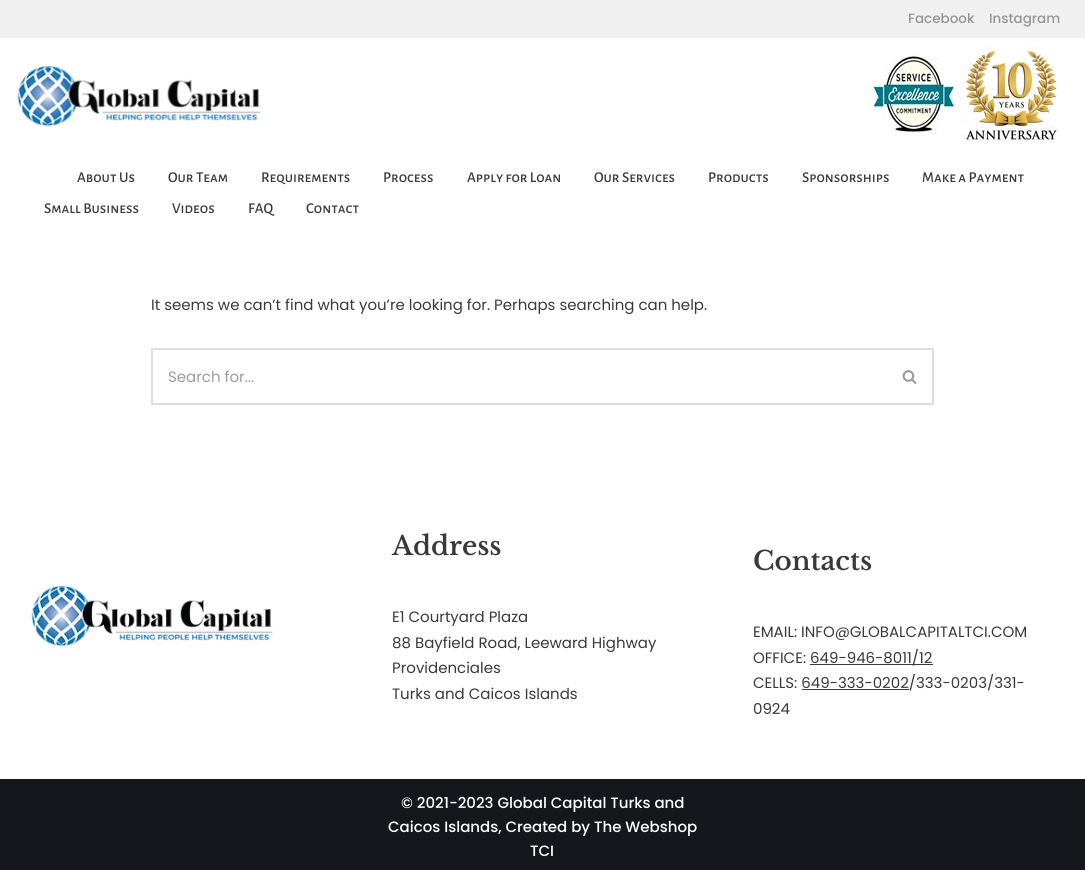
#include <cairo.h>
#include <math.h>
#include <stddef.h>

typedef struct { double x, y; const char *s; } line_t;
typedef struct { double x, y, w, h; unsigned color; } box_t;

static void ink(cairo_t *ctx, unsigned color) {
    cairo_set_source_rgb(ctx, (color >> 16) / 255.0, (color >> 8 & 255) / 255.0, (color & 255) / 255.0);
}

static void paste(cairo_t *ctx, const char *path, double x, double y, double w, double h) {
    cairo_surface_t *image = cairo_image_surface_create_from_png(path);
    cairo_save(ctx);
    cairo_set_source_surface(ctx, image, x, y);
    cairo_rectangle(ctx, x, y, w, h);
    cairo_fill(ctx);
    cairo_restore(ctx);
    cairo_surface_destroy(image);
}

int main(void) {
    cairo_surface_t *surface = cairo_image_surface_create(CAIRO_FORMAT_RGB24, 1085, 870);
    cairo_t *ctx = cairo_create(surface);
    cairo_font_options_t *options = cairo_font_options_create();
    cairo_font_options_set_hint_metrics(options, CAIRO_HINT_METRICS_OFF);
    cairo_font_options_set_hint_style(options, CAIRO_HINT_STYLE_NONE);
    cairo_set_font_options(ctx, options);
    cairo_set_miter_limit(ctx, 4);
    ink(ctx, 0xFFFFFF);
    cairo_paint(ctx);
    ink(ctx, 0xF0F0F0);
    cairo_rectangle(ctx, 0, 0, 1085, 38);
    cairo_fill(ctx);
    cairo_select_font_face(ctx, "Poppins Medium", CAIRO_FONT_SLANT_NORMAL, CAIRO_FONT_WEIGHT_NORMAL);
    cairo_set_font_size(ctx, 13.5);
    ink(ctx, 0x959595);
    cairo_move_to(ctx, 908, 23);
    cairo_show_text(ctx, "Facebook");
    cairo_move_to(ctx, 989, 23);
    cairo_show_text(ctx, "Instagram");
    paste(ctx, "media/1.png", 17, 65, 244, 62);
    paste(ctx, "media/2.png", 867, 53, 93, 84);
    paste(ctx, "media/3.png", 960, 46, 100, 96);
    cairo_select_font_face(ctx, "Alegreya Sans SC Medium", CAIRO_FONT_SLANT_NORMAL, CAIRO_FONT_WEIGHT_NORMAL);
    cairo_set_font_size(ctx, 15);
    ink(ctx, 0x393939);
    {
        static const line_t items[] = {
            {77, 182, "About Us"},
            {168, 182, "Our Team"},
            {261, 182, "Requirements"},
            {383, 182, "Process"},
            {467, 182, "Apply for Loan"},
            {594, 182, "Our Services"},
            {708, 182, "Products"},
            {802, 182, "Sponsorships"},
            {922, 182, "Make a Payment"},
            {44, 213, "Small Business"},
            {172, 213, "Videos"},
            {248, 213, "FAQ"},
            {306, 213, "Contact"},
        };
        for (size_t i = 0; i < sizeof items / sizeof *items; i++) {
            cairo_move_to(ctx, items[i].x, items[i].y);
            cairo_show_text(ctx, items[i].s);
        }
    }
    cairo_select_font_face(ctx, "Poppins", CAIRO_FONT_SLANT_NORMAL, CAIRO_FONT_WEIGHT_NORMAL);
    cairo_move_to(ctx, 151, 310);
    cairo_show_text(ctx, "It seems we can’t find what you’re looking for. Perhaps searching can help.");
    {
        static const box_t items[] = {
            {151, 348, 783, 2, 0xDDDDDD},
            {151, 403, 736, 2, 0xDDDDDD},
            {151, 348, 2, 57, 0xDDDDDD},
        };
        for (size_t i = 0; i < sizeof items / sizeof *items; i++) {
            ink(ctx, items[i].color);
            cairo_rectangle(ctx, items[i].x, items[i].y, items[i].w, items[i].h);
            cairo_fill(ctx);
        }
    }
    ink(ctx, 0x9C9C9C);
    cairo_move_to(ctx, 168, 382);
    cairo_show_text(ctx, "Search for...");
    ink(ctx, 0xDDDDDD);
    cairo_rectangle(ctx, 932, 348, 2, 57);
    cairo_fill(ctx);
    cairo_rectangle(ctx, 887, 403, 47, 2);
    cairo_fill(ctx);
    paste(ctx, "media/4.png", 902, 370, 15, 14);
    paste(ctx, "media/5.png", 31, 586, 242, 60);
    cairo_select_font_face(ctx, "Libre Baskerville SemiBold", CAIRO_FONT_SLANT_NORMAL, CAIRO_FONT_WEIGHT_NORMAL);
    cairo_set_font_size(ctx, 26.25);
    ink(ctx, 0x393939);
    cairo_move_to(ctx, 392, 555);
    cairo_show_text(ctx, "Address");
    cairo_select_font_face(ctx, "Poppins", CAIRO_FONT_SLANT_NORMAL, CAIRO_FONT_WEIGHT_NORMAL);
    cairo_set_font_size(ctx, 15);
    {
        static const line_t items[] = {
            {392, 622, "E1 Courtyard Plaza"},
            {392, 648, "88 Bayfield Road, Leeward Highway"},
            {392, 673, "Providenciales"},
            {392, 699, "Turks and Caicos Islands"},
        };
        for (size_t i = 0; i < sizeof items / sizeof *items; i++) {
            cairo_move_to(ctx, items[i].x, items[i].y);
            cairo_show_text(ctx, items[i].s);
        }
    }
    cairo_select_font_face(ctx, "Libre Baskerville SemiBold", CAIRO_FONT_SLANT_NORMAL, CAIRO_FONT_WEIGHT_NORMAL);
    cairo_set_font_size(ctx, 26.25);
    cairo_move_to(ctx, 753, 570);
    cairo_show_text(ctx, "Contacts");
    cairo_select_font_face(ctx, "Poppins", CAIRO_FONT_SLANT_NORMAL, CAIRO_FONT_WEIGHT_NORMAL);
    cairo_set_font_size(ctx, 15);
    cairo_move_to(ctx, 753, 637);
    cairo_show_text(ctx, "EMAIL: INFO@GLOBALCAPITALTCI.COM");
    cairo_move_to(ctx, 753, 663);
    cairo_show_text(ctx, "OFFICE:");
    cairo_rectangle(ctx, 810, 664, 123, 1);
    cairo_fill(ctx);
    cairo_move_to(ctx, 810, 663);
    cairo_show_text(ctx, "649-946-8011/12");
    cairo_move_to(ctx, 753, 688);
    cairo_show_text(ctx, "CELLS: 649-333-0202/333-0203/331-");
    cairo_rectangle(ctx, 802, 689, 107, 1);
    cairo_fill(ctx);
    cairo_move_to(ctx, 753, 714);
    cairo_show_text(ctx, "0924");
    ink(ctx, 0x14171C);
    cairo_rectangle(ctx, 0, 779, 1085, 91);
    cairo_fill(ctx);
    cairo_select_font_face(ctx, "Poppins Medium", CAIRO_FONT_SLANT_NORMAL, CAIRO_FONT_WEIGHT_NORMAL);
    ink(ctx, 0xFFFFFF);
    {
        static const line_t items[] = {
            {401, 808, "© 2021-2023 Global Capital Turks and"},
            {388, 832, "Caicos Islands, Created by The Webshop"},
            {530, 856, "TCI"},
        };
        for (size_t i = 0; i < sizeof items / sizeof *items; i++) {
            cairo_move_to(ctx, items[i].x, items[i].y);
            cairo_show_text(ctx, items[i].s);
        }
    }
    cairo_surface_write_to_png(surface, "image.png");
    cairo_font_options_destroy(options);
    cairo_destroy(ctx);
    cairo_surface_destroy(surface);
    return 0;
}
